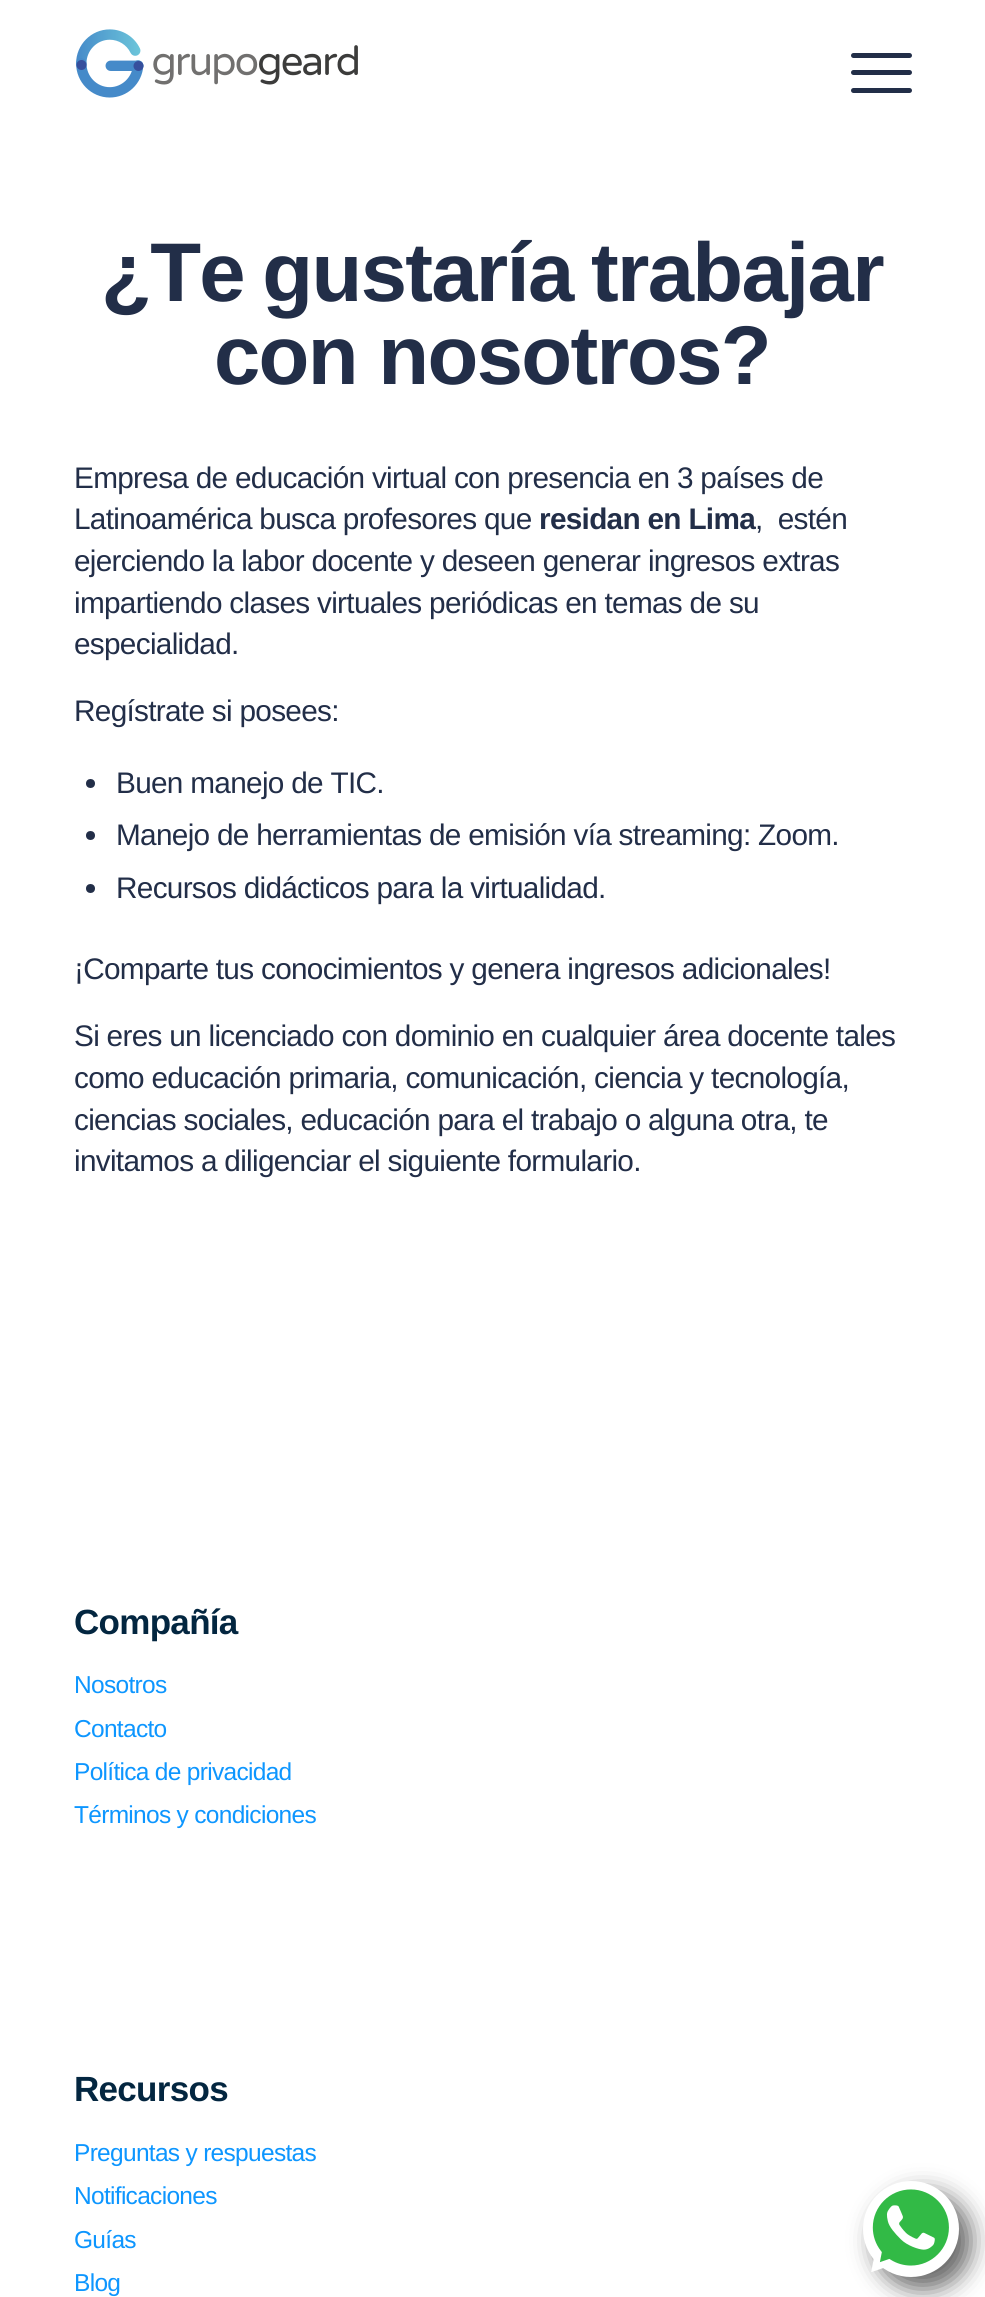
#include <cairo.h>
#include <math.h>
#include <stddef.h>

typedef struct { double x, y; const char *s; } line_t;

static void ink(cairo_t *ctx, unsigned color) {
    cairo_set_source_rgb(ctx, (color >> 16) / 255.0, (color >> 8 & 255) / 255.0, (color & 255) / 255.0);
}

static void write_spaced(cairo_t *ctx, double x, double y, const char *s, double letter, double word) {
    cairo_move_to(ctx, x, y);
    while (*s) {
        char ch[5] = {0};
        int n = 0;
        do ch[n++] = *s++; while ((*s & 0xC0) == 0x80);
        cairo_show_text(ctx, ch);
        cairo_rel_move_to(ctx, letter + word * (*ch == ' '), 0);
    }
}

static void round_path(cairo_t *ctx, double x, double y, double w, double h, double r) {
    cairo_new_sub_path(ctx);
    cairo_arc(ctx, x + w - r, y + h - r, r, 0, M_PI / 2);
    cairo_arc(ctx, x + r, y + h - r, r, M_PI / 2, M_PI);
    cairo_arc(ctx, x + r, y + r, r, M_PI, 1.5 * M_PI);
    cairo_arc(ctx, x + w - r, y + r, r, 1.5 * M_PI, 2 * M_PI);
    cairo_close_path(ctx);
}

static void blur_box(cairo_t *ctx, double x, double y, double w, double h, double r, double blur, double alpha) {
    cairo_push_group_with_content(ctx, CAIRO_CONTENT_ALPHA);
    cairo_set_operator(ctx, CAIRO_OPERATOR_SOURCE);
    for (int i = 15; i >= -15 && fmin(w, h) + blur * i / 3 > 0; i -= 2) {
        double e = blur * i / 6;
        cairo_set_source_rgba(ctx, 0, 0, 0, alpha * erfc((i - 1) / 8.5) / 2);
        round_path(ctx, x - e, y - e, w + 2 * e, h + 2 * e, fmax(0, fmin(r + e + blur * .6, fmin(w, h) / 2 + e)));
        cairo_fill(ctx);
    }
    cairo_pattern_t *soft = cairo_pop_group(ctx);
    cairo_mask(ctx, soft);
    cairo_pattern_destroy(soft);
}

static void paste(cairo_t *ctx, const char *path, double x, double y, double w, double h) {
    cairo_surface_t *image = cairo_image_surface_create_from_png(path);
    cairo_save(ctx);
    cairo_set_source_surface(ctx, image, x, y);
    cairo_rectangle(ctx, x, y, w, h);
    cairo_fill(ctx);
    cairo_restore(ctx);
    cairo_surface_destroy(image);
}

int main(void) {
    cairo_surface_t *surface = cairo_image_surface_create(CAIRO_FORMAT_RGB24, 985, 2297);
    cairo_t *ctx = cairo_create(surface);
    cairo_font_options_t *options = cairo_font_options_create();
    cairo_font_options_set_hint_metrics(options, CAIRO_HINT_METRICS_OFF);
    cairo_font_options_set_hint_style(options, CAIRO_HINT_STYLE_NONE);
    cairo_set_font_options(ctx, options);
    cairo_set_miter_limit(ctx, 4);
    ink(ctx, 0xFFFFFF);
    cairo_paint(ctx);
    paste(ctx, "media/1.png", 76, 29, 282, 69);
    ink(ctx, 0x222E48);
    round_path(ctx, 851, 70, 61, 5, 2.5);
    cairo_fill(ctx);
    round_path(ctx, 851, 53, 61, 5, 2.5);
    cairo_fill(ctx);
    round_path(ctx, 851, 88, 61, 5, 2.5);
    cairo_fill(ctx);
    cairo_select_font_face(ctx, "Liberation Sans", CAIRO_FONT_SLANT_NORMAL, CAIRO_FONT_WEIGHT_BOLD);
    cairo_set_font_size(ctx, 83.25);
    write_spaced(ctx, 101, 301, "¿Te gustaría trabajar", -1.7, -3);
    write_spaced(ctx, 214, 384, "con nosotros?", -1.7, 0);
    cairo_select_font_face(ctx, "Liberation Sans", CAIRO_FONT_SLANT_NORMAL, CAIRO_FONT_WEIGHT_NORMAL);
    cairo_set_font_size(ctx, 29.75);
    write_spaced(ctx, 74, 488, "Empresa de educación virtual con presencia en 3 países de", -0.7, 0);
    write_spaced(ctx, 74, 529, "Latinoamérica busca profesores que", -0.7, 0);
    cairo_select_font_face(ctx, "Liberation Sans", CAIRO_FONT_SLANT_NORMAL, CAIRO_FONT_WEIGHT_BOLD);
    write_spaced(ctx, 539, 529, "residan en Lima", -0.7, 0);
    cairo_select_font_face(ctx, "Liberation Sans", CAIRO_FONT_SLANT_NORMAL, CAIRO_FONT_WEIGHT_NORMAL);
    {
        static const line_t items[] = {
            {755, 529, ",  estén"},
            {74, 571, "ejerciendo la labor docente y deseen generar ingresos extras"},
            {74, 613, "impartiendo clases virtuales periódicas en temas de su"},
            {74, 654, "especialidad."},
            {74, 721, "Regístrate si posees:"},
        };
        for (size_t i = 0; i < sizeof items / sizeof *items; i++) {
            write_spaced(ctx, items[i].x, items[i].y, items[i].s, -0.7, 0);
        }
    }
    cairo_new_path(ctx);
    cairo_arc(ctx, 90.5, 783.5, 4.5, 0, 2 * M_PI);
    cairo_fill(ctx);
    write_spaced(ctx, 116, 793, "Buen manejo de TIC.", -0.7, 0);
    cairo_new_path(ctx);
    cairo_arc(ctx, 90.5, 835.5, 4.5, 0, 2 * M_PI);
    cairo_fill(ctx);
    write_spaced(ctx, 116, 845, "Manejo de herramientas de emisión vía streaming: Zoom.", -0.7, 0);
    cairo_new_path(ctx);
    cairo_arc(ctx, 90.5, 888.5, 4.5, 0, 2 * M_PI);
    cairo_fill(ctx);
    {
        static const line_t items[] = {
            {116, 898, "Recursos didácticos para la virtualidad."},
            {74, 979, "¡Comparte tus conocimientos y genera ingresos adicionales!"},
            {74, 1046, "Si eres un licenciado con dominio en cualquier área docente tales"},
            {74, 1088, "como educación primaria, comunicación, ciencia y tecnología,"},
            {74, 1130, "ciencias sociales, educación para el trabajo o alguna otra, te"},
            {74, 1171, "invitamos a diligenciar el siguiente formulario."},
        };
        for (size_t i = 0; i < sizeof items / sizeof *items; i++) {
            write_spaced(ctx, items[i].x, items[i].y, items[i].s, -0.7, 0);
        }
    }
    cairo_select_font_face(ctx, "Liberation Sans", CAIRO_FONT_SLANT_NORMAL, CAIRO_FONT_WEIGHT_BOLD);
    cairo_set_font_size(ctx, 35);
    ink(ctx, 0x032640);
    write_spaced(ctx, 74, 1634, "Compañía", -0.7, 0);
    cairo_select_font_face(ctx, "Liberation Sans", CAIRO_FONT_SLANT_NORMAL, CAIRO_FONT_WEIGHT_NORMAL);
    cairo_set_font_size(ctx, 24.5);
    ink(ctx, 0x0D96FF);
    {
        static const line_t items[] = {
            {74, 1693, "Nosotros"},
            {74, 1737, "Contacto"},
            {74, 1780, "Política de privacidad"},
            {74, 1823, "Términos y condiciones"},
        };
        for (size_t i = 0; i < sizeof items / sizeof *items; i++) {
            write_spaced(ctx, items[i].x, items[i].y, items[i].s, -0.7, 0);
        }
    }
    cairo_select_font_face(ctx, "Liberation Sans", CAIRO_FONT_SLANT_NORMAL, CAIRO_FONT_WEIGHT_BOLD);
    cairo_set_font_size(ctx, 35);
    ink(ctx, 0x032640);
    write_spaced(ctx, 74, 2101, "Recursos", -0.7, 0);
    cairo_select_font_face(ctx, "Liberation Sans", CAIRO_FONT_SLANT_NORMAL, CAIRO_FONT_WEIGHT_NORMAL);
    cairo_set_font_size(ctx, 24.5);
    ink(ctx, 0x0D96FF);
    {
        static const line_t items[] = {
            {74, 2161, "Preguntas y respuestas"},
            {74, 2204, "Notificaciones"},
            {74, 2248, "Guías"},
            {74, 2291, "Blog"},
        };
        for (size_t i = 0; i < sizeof items / sizeof *items; i++) {
            write_spaced(ctx, items[i].x, items[i].y, items[i].s, -0.7, 0);
        }
    }
    ink(ctx, 0x666666);
    blur_box(ctx, 875, 2193, 96, 96, 48, 12, 1);
    ink(ctx, 0xFFFFFF);
    cairo_arc(ctx, 911, 2229, 48, 0, 2 * M_PI);
    cairo_fill(ctx);
    paste(ctx, "media/2.png", 871, 2189, 78, 83);
    cairo_surface_write_to_png(surface, "image.png");
    cairo_font_options_destroy(options);
    cairo_destroy(ctx);
    cairo_surface_destroy(surface);
    return 0;
}
